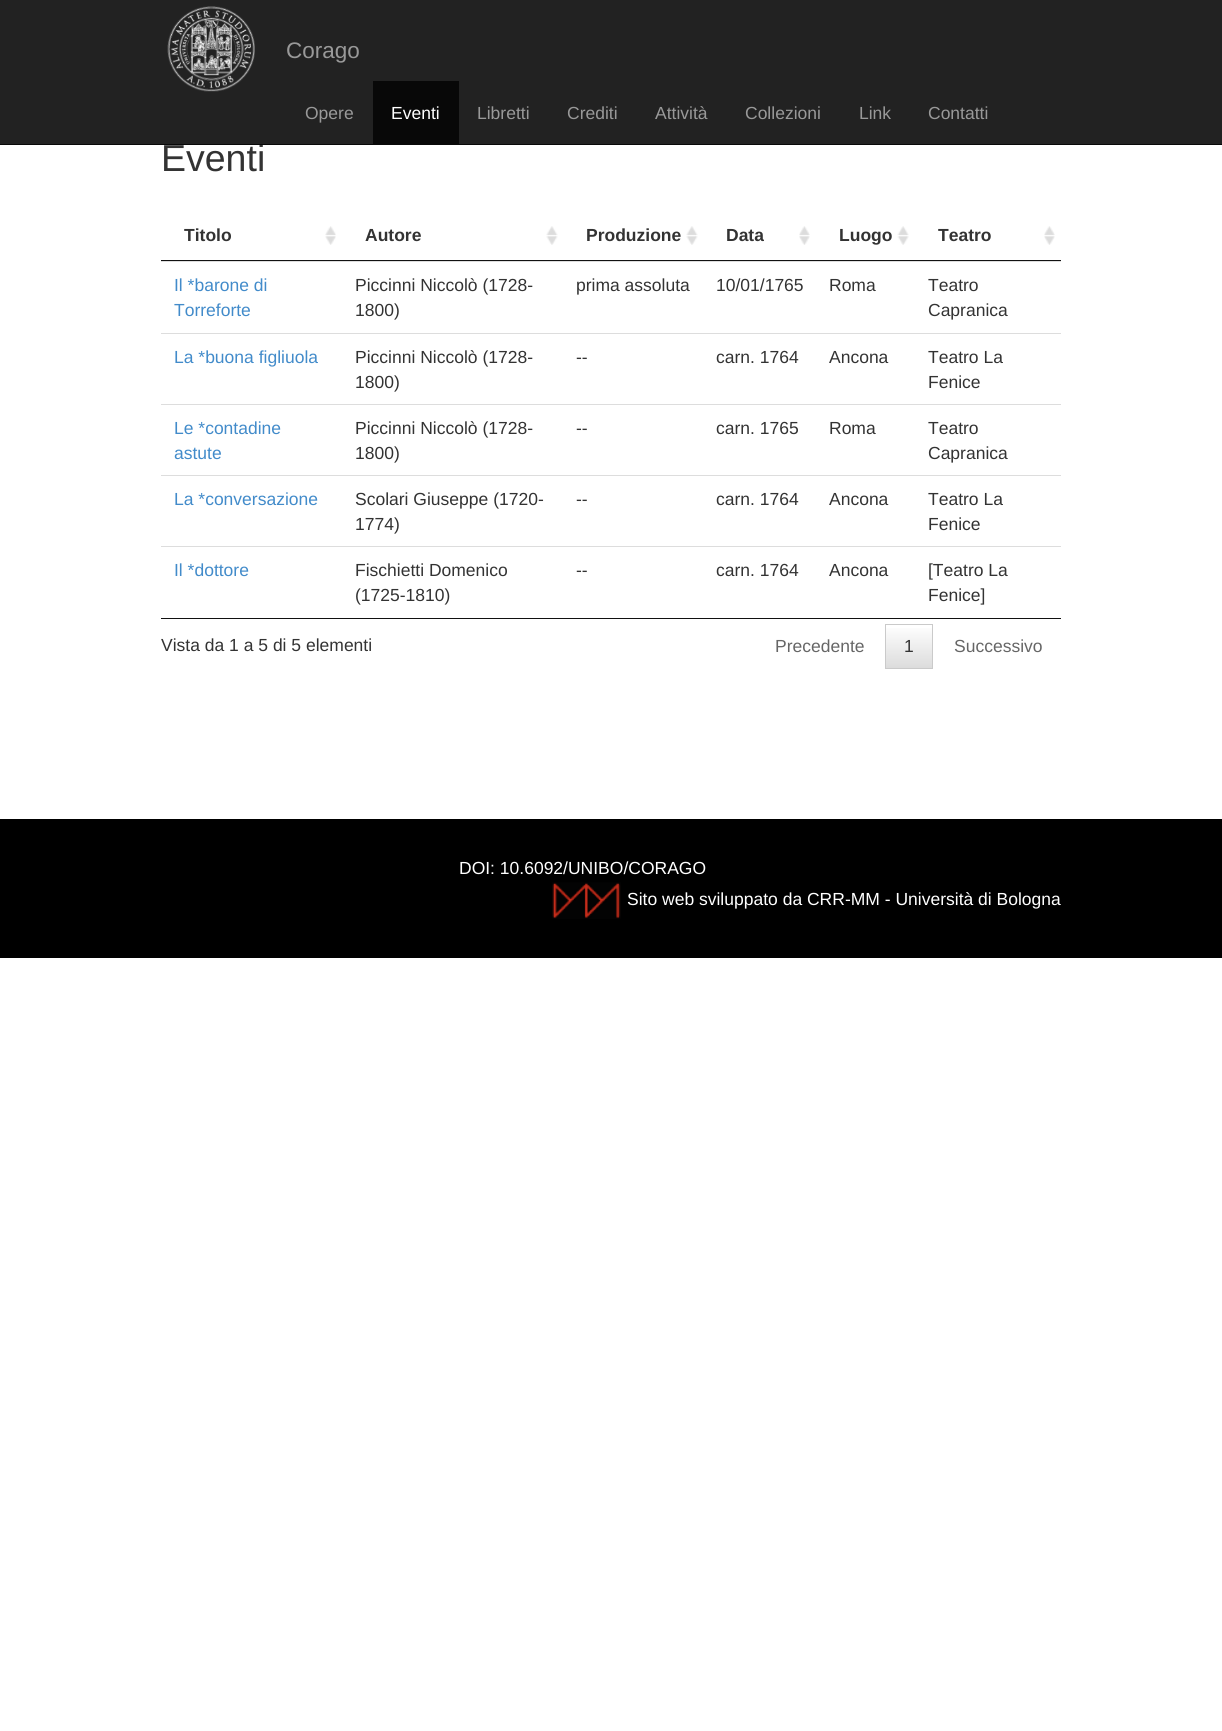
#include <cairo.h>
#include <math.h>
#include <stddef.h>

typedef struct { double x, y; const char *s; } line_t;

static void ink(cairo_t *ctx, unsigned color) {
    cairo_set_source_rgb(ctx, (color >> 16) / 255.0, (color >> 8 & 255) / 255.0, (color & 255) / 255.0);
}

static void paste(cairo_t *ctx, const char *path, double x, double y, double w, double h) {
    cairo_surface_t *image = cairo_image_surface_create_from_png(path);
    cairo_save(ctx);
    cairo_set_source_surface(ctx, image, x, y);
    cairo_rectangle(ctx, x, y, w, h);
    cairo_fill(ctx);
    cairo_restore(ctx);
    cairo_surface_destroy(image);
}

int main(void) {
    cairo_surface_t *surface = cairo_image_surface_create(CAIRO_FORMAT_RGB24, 1222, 1731);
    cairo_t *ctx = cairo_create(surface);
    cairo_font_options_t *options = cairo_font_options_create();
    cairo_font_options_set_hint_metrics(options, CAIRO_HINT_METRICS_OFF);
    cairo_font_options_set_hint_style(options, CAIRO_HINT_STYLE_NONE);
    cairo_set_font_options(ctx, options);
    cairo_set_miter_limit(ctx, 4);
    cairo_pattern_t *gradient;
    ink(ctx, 0xFFFFFF);
    cairo_paint(ctx);
    cairo_select_font_face(ctx, "Liberation Sans", CAIRO_FONT_SLANT_NORMAL, CAIRO_FONT_WEIGHT_NORMAL);
    cairo_set_font_size(ctx, 37.5);
    ink(ctx, 0x333333);
    cairo_move_to(ctx, 161, 171);
    cairo_show_text(ctx, "Eventi");
    ink(ctx, 0x222222);
    cairo_rectangle(ctx, 0, 0, 1222, 144);
    cairo_fill(ctx);
    ink(ctx, 0x080808);
    cairo_rectangle(ctx, 0, 144, 1222, 1);
    cairo_fill(ctx);
    paste(ctx, "media/1.png", 167, 6, 88, 86);
    cairo_set_font_size(ctx, 22.5);
    ink(ctx, 0x999999);
    cairo_move_to(ctx, 286, 58);
    cairo_show_text(ctx, "Corago");
    cairo_set_font_size(ctx, 17.5);
    cairo_move_to(ctx, 305, 119);
    cairo_show_text(ctx, "Opere");
    ink(ctx, 0x080808);
    cairo_rectangle(ctx, 373, 81, 86, 63);
    cairo_fill(ctx);
    ink(ctx, 0xFFFFFF);
    cairo_move_to(ctx, 391, 119);
    cairo_show_text(ctx, "Eventi");
    ink(ctx, 0x999999);
    {
        static const line_t items[] = {
            {477, 119, "Libretti"},
            {567, 119, "Crediti"},
            {655, 119, "Attività"},
            {745, 119, "Collezioni"},
            {859, 119, "Link"},
            {928, 119, "Contatti"},
        };
        for (size_t i = 0; i < sizeof items / sizeof *items; i++) {
            cairo_move_to(ctx, items[i].x, items[i].y);
            cairo_show_text(ctx, items[i].s);
        }
    }
    ink(ctx, 0x111111);
    cairo_rectangle(ctx, 161, 618, 900, 1);
    cairo_fill(ctx);
    paste(ctx, "media/2.png", 325, 226, 11, 19);
    cairo_rectangle(ctx, 161, 260, 900, 1);
    cairo_fill(ctx);
    cairo_select_font_face(ctx, "Liberation Sans", CAIRO_FONT_SLANT_NORMAL, CAIRO_FONT_WEIGHT_BOLD);
    ink(ctx, 0x333333);
    cairo_move_to(ctx, 184, 241);
    cairo_show_text(ctx, "Titolo");
    paste(ctx, "media/3.png", 546, 226, 12, 19);
    cairo_move_to(ctx, 365, 241);
    cairo_show_text(ctx, "Autore");
    paste(ctx, "media/3.png", 686, 226, 12, 19);
    cairo_move_to(ctx, 586, 241);
    cairo_show_text(ctx, "Produzione");
    paste(ctx, "media/4.png", 799, 226, 11, 19);
    cairo_move_to(ctx, 726, 241);
    cairo_show_text(ctx, "Data");
    paste(ctx, "media/5.png", 897, 226, 12, 19);
    cairo_move_to(ctx, 839, 241);
    cairo_show_text(ctx, "Luogo");
    paste(ctx, "media/6.png", 1044, 226, 11, 19);
    cairo_move_to(ctx, 938, 241);
    cairo_show_text(ctx, "Teatro");
    ink(ctx, 0xDDDDDD);
    cairo_rectangle(ctx, 161, 261, 900, 1);
    cairo_fill(ctx);
    cairo_select_font_face(ctx, "Liberation Sans", CAIRO_FONT_SLANT_NORMAL, CAIRO_FONT_WEIGHT_NORMAL);
    ink(ctx, 0x428BCA);
    cairo_move_to(ctx, 174, 291);
    cairo_show_text(ctx, "Il *barone di");
    cairo_move_to(ctx, 174, 316);
    cairo_show_text(ctx, "Torreforte");
    ink(ctx, 0x333333);
    {
        static const line_t items[] = {
            {355, 291, "Piccinni Niccolò (1728-"},
            {355, 316, "1800)"},
            {576, 291, "prima assoluta"},
            {716, 291, "10/01/1765"},
            {829, 291, "Roma"},
            {928, 291, "Teatro"},
            {928, 316, "Capranica"},
        };
        for (size_t i = 0; i < sizeof items / sizeof *items; i++) {
            cairo_move_to(ctx, items[i].x, items[i].y);
            cairo_show_text(ctx, items[i].s);
        }
    }
    ink(ctx, 0xDDDDDD);
    cairo_rectangle(ctx, 161, 333, 900, 1);
    cairo_fill(ctx);
    ink(ctx, 0x428BCA);
    cairo_move_to(ctx, 174, 363);
    cairo_show_text(ctx, "La *buona figliuola");
    ink(ctx, 0x333333);
    {
        static const line_t items[] = {
            {355, 363, "Piccinni Niccolò (1728-"},
            {355, 388, "1800)"},
            {576, 363, "--"},
            {716, 363, "carn. 1764"},
            {829, 363, "Ancona"},
            {928, 363, "Teatro La"},
            {928, 388, "Fenice"},
        };
        for (size_t i = 0; i < sizeof items / sizeof *items; i++) {
            cairo_move_to(ctx, items[i].x, items[i].y);
            cairo_show_text(ctx, items[i].s);
        }
    }
    ink(ctx, 0xDDDDDD);
    cairo_rectangle(ctx, 161, 404, 900, 1);
    cairo_fill(ctx);
    ink(ctx, 0x428BCA);
    cairo_move_to(ctx, 174, 434);
    cairo_show_text(ctx, "Le *contadine");
    cairo_move_to(ctx, 174, 459);
    cairo_show_text(ctx, "astute");
    ink(ctx, 0x333333);
    {
        static const line_t items[] = {
            {355, 434, "Piccinni Niccolò (1728-"},
            {355, 459, "1800)"},
            {576, 434, "--"},
            {716, 434, "carn. 1765"},
            {829, 434, "Roma"},
            {928, 434, "Teatro"},
            {928, 459, "Capranica"},
        };
        for (size_t i = 0; i < sizeof items / sizeof *items; i++) {
            cairo_move_to(ctx, items[i].x, items[i].y);
            cairo_show_text(ctx, items[i].s);
        }
    }
    ink(ctx, 0xDDDDDD);
    cairo_rectangle(ctx, 161, 475, 900, 1);
    cairo_fill(ctx);
    ink(ctx, 0x428BCA);
    cairo_move_to(ctx, 174, 505);
    cairo_show_text(ctx, "La *conversazione");
    ink(ctx, 0x333333);
    {
        static const line_t items[] = {
            {355, 505, "Scolari Giuseppe (1720-"},
            {355, 530, "1774)"},
            {576, 505, "--"},
            {716, 505, "carn. 1764"},
            {829, 505, "Ancona"},
            {928, 505, "Teatro La"},
            {928, 530, "Fenice"},
        };
        for (size_t i = 0; i < sizeof items / sizeof *items; i++) {
            cairo_move_to(ctx, items[i].x, items[i].y);
            cairo_show_text(ctx, items[i].s);
        }
    }
    ink(ctx, 0xDDDDDD);
    cairo_rectangle(ctx, 161, 546, 900, 1);
    cairo_fill(ctx);
    ink(ctx, 0x428BCA);
    cairo_move_to(ctx, 174, 576);
    cairo_show_text(ctx, "Il *dottore");
    ink(ctx, 0x333333);
    {
        static const line_t items[] = {
            {355, 576, "Fischietti Domenico"},
            {355, 601, "(1725-1810)"},
            {576, 576, "--"},
            {716, 576, "carn. 1764"},
            {829, 576, "Ancona"},
            {928, 576, "[Teatro La"},
            {928, 601, "Fenice]"},
            {161, 651, "Vista da 1 a 5 di 5 elementi"},
        };
        for (size_t i = 0; i < sizeof items / sizeof *items; i++) {
            cairo_move_to(ctx, items[i].x, items[i].y);
            cairo_show_text(ctx, items[i].s);
        }
    }
    ink(ctx, 0x666666);
    cairo_move_to(ctx, 775, 652);
    cairo_show_text(ctx, "Precedente");
    gradient = cairo_pattern_create_linear(909, 625, 909, 668);
    cairo_pattern_add_color_stop_rgba(gradient, 0, 1, 1, 1, 1);
    cairo_pattern_add_color_stop_rgba(gradient, 1, 0.863, 0.863, 0.863, 1);
    cairo_set_source(ctx, gradient);
    cairo_pattern_destroy(gradient);
    cairo_rectangle(ctx, 886, 628, 46, 40);
    cairo_fill(ctx);
    cairo_rectangle(ctx, 885.5, 624.5, 47, 44);
    ink(ctx, 0xCACACA);
    cairo_set_line_width(ctx, 1);
    cairo_stroke(ctx);
    ink(ctx, 0x333333);
    cairo_move_to(ctx, 904, 652);
    cairo_show_text(ctx, "1");
    ink(ctx, 0x666666);
    cairo_move_to(ctx, 954, 652);
    cairo_show_text(ctx, "Successivo");
    ink(ctx, 0x000000);
    cairo_rectangle(ctx, 0, 819, 1222, 139);
    cairo_fill(ctx);
    ink(ctx, 0xFFFFFF);
    cairo_move_to(ctx, 459, 874);
    cairo_show_text(ctx, "DOI: 10.6092/UNIBO/CORAGO");
    paste(ctx, "media/7.png", 552, 882, 69, 37);
    cairo_move_to(ctx, 627, 905);
    cairo_show_text(ctx, "Sito web sviluppato da CRR-MM - Università di Bologna");
    cairo_surface_write_to_png(surface, "image.png");
    cairo_font_options_destroy(options);
    cairo_destroy(ctx);
    cairo_surface_destroy(surface);
    return 0;
}
